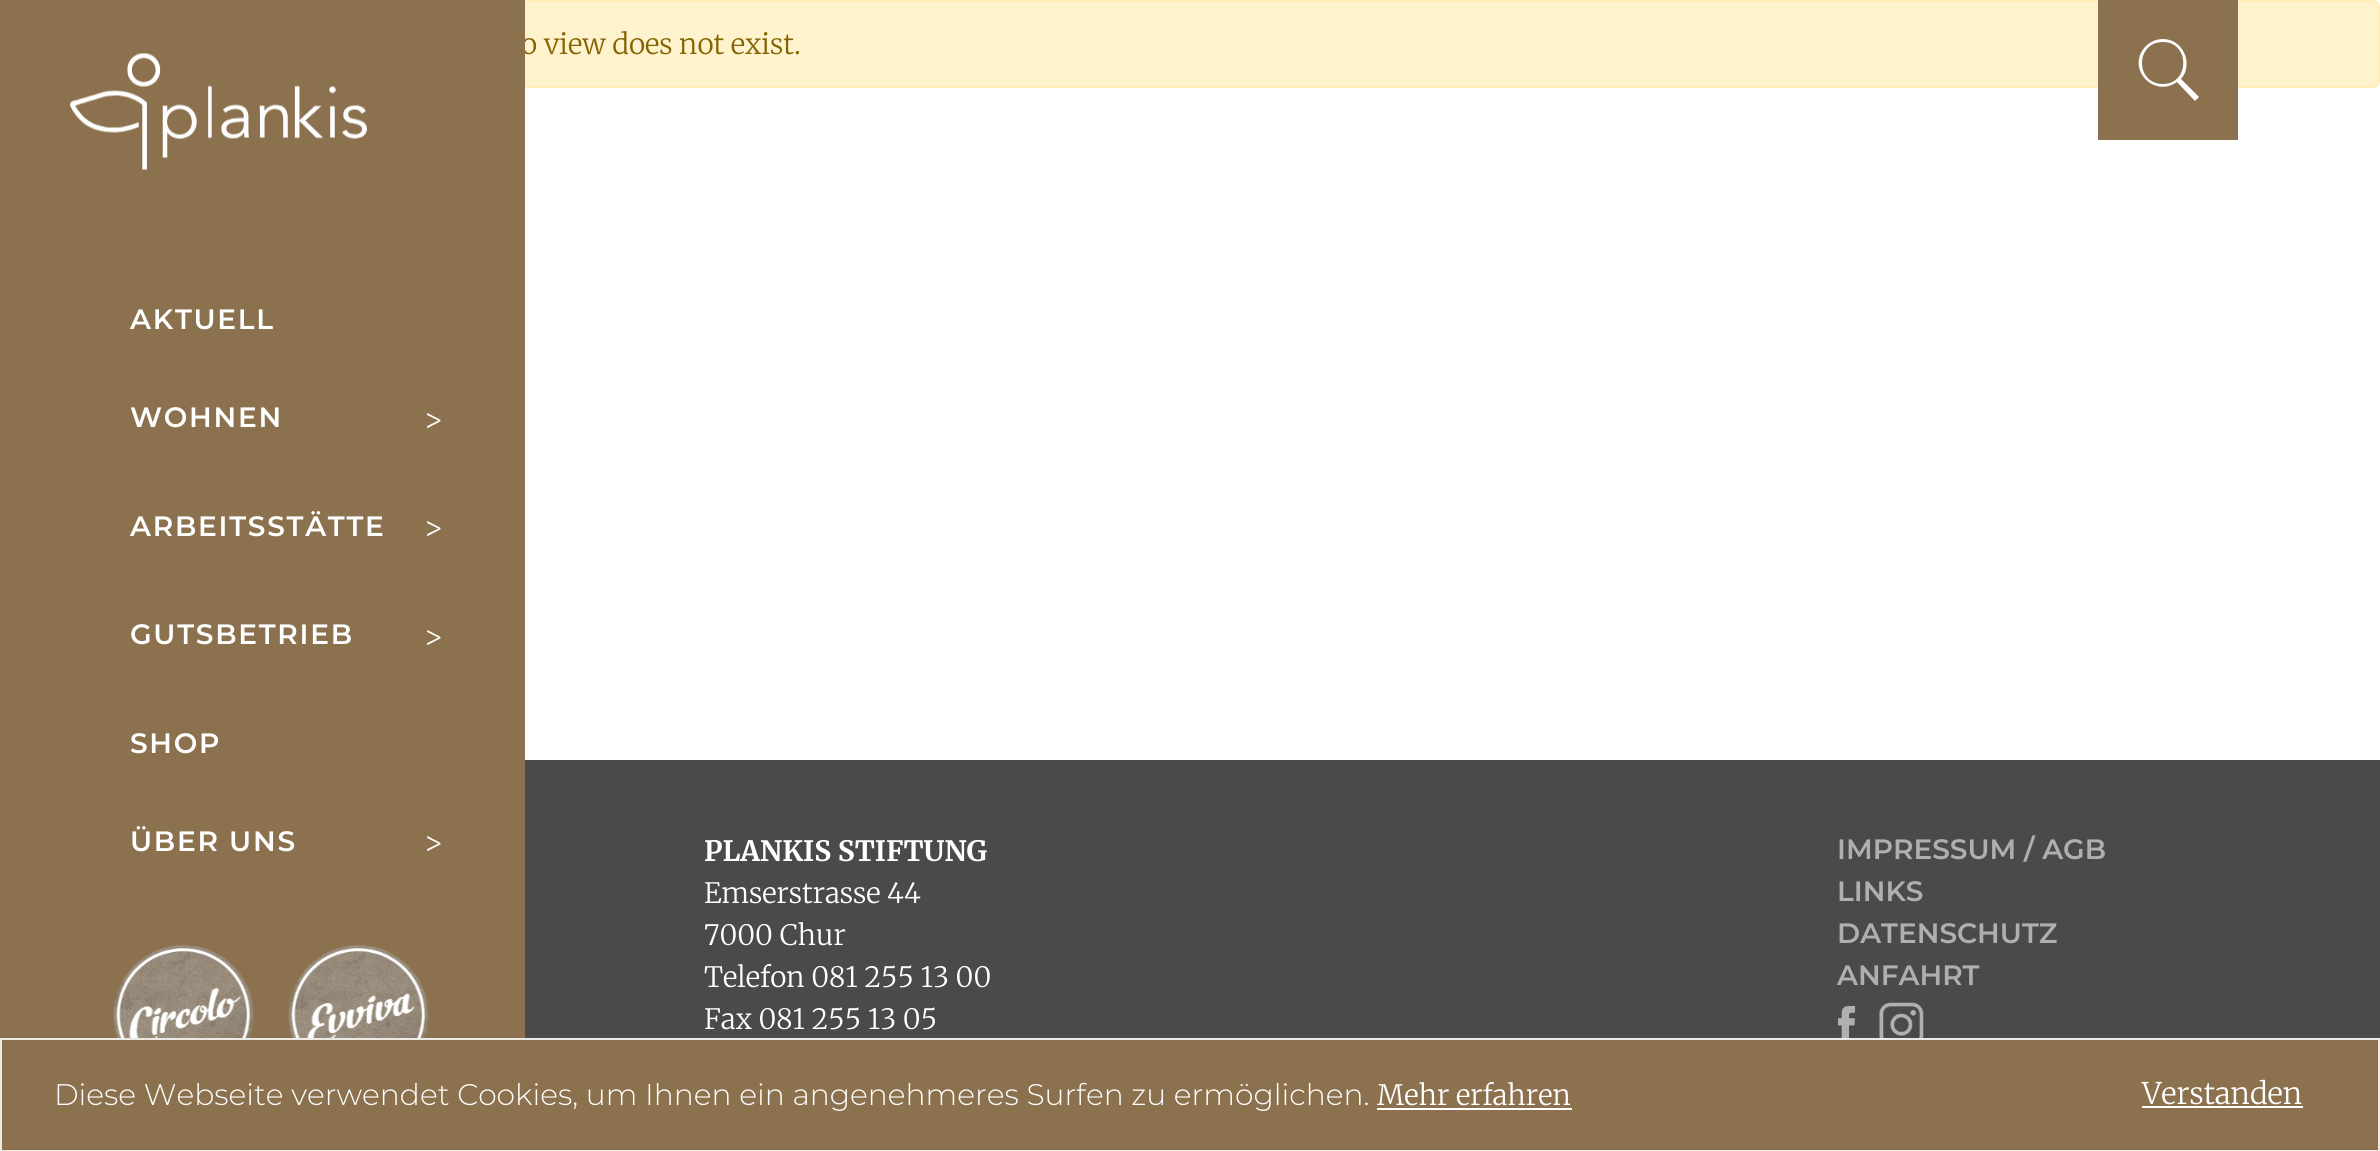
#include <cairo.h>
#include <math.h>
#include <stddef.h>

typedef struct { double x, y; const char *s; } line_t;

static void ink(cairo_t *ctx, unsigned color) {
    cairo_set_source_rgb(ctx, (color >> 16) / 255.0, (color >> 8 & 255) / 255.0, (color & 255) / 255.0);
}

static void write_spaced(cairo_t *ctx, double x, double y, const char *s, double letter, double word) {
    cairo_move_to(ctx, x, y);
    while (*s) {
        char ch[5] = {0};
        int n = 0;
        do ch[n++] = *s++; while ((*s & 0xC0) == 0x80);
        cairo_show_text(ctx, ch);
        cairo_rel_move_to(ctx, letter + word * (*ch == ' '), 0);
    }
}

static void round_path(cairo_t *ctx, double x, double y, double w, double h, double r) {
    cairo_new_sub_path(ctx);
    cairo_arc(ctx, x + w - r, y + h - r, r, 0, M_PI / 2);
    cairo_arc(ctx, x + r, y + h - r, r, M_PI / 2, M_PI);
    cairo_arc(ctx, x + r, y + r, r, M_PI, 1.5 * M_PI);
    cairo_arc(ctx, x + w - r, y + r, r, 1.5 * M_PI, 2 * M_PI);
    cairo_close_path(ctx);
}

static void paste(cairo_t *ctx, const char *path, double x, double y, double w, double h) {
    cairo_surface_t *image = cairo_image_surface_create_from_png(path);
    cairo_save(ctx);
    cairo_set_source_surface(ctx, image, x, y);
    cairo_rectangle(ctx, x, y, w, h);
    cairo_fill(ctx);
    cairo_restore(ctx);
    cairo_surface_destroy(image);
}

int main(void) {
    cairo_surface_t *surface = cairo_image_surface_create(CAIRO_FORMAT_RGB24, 2380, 1151);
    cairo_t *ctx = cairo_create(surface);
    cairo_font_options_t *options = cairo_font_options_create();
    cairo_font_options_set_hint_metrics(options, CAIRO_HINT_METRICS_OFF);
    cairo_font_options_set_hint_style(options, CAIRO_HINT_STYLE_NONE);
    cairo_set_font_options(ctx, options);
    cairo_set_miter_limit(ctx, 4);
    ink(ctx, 0xFFFFFF);
    cairo_paint(ctx);
    ink(ctx, 0xFFF3CD);
    round_path(ctx, 1, 1, 2378, 86, 6);
    cairo_fill_preserve(ctx);
    ink(ctx, 0xFFEEBA);
    cairo_stroke(ctx);
    cairo_select_font_face(ctx, "Merriweather Light", CAIRO_FONT_SLANT_NORMAL, CAIRO_FONT_WEIGHT_NORMAL);
    cairo_set_font_size(ctx, 28);
    ink(ctx, 0x856404);
    cairo_move_to(ctx, 521, 54);
    cairo_show_text(ctx, "o view does not exist.");
    ink(ctx, 0x8B714E);
    cairo_rectangle(ctx, 2098, 0, 140, 140);
    cairo_fill(ctx);
    ink(ctx, 0xFFFFFF);
    cairo_new_path(ctx);
    cairo_move_to(ctx, 2163, 39);
    cairo_curve_to(ctx, 2156, 39, 2150, 42, 2146, 46);
    cairo_curve_to(ctx, 2125, 67, 2153, 99, 2177, 82);
    cairo_line_to(ctx, 2195, 101);
    cairo_line_to(ctx, 2199, 97);
    cairo_line_to(ctx, 2181, 79);
    cairo_curve_to(ctx, 2194, 64, 2183, 39, 2163, 39);
    cairo_close_path(ctx);
    cairo_move_to(ctx, 2163, 42);
    cairo_curve_to(ctx, 2190, 42, 2190, 84, 2163, 84);
    cairo_curve_to(ctx, 2135, 84, 2135, 42, 2163, 42);
    cairo_close_path(ctx);
    cairo_fill(ctx);
    ink(ctx, 0x8B714E);
    cairo_rectangle(ctx, 0, 0, 525, 1038);
    cairo_fill(ctx);
    paste(ctx, "media/1.png", 70, 52, 297, 118);
    cairo_select_font_face(ctx, "Montserrat SemiBold", CAIRO_FONT_SLANT_NORMAL, CAIRO_FONT_WEIGHT_NORMAL);
    ink(ctx, 0xFFFFFF);
    write_spaced(ctx, 130, 329, "AKTUELL", 1.75, 0);
    write_spaced(ctx, 130, 427, "WOHNEN", 1.75, 0);
    cairo_select_font_face(ctx, "Merriweather Light", CAIRO_FONT_SLANT_NORMAL, CAIRO_FONT_WEIGHT_NORMAL);
    write_spaced(ctx, 424, 429, ">", 1.75, 0);
    cairo_select_font_face(ctx, "Montserrat SemiBold", CAIRO_FONT_SLANT_NORMAL, CAIRO_FONT_WEIGHT_NORMAL);
    write_spaced(ctx, 130, 536, "ARBEITSSTÄTTE", 1.75, 0);
    cairo_select_font_face(ctx, "Merriweather Light", CAIRO_FONT_SLANT_NORMAL, CAIRO_FONT_WEIGHT_NORMAL);
    write_spaced(ctx, 424, 537, ">", 1.75, 0);
    cairo_select_font_face(ctx, "Montserrat SemiBold", CAIRO_FONT_SLANT_NORMAL, CAIRO_FONT_WEIGHT_NORMAL);
    write_spaced(ctx, 130, 644, "GUTSBETRIEB", 1.75, 0);
    cairo_select_font_face(ctx, "Merriweather Light", CAIRO_FONT_SLANT_NORMAL, CAIRO_FONT_WEIGHT_NORMAL);
    write_spaced(ctx, 424, 646, ">", 1.75, 0);
    cairo_select_font_face(ctx, "Montserrat SemiBold", CAIRO_FONT_SLANT_NORMAL, CAIRO_FONT_WEIGHT_NORMAL);
    write_spaced(ctx, 130, 753, "SHOP", 1.75, 0);
    write_spaced(ctx, 130, 851, "ÜBER UNS", 1.75, 0);
    cairo_select_font_face(ctx, "Merriweather Light", CAIRO_FONT_SLANT_NORMAL, CAIRO_FONT_WEIGHT_NORMAL);
    write_spaced(ctx, 424, 852, ">", 1.75, 0);
    paste(ctx, "media/2.png", 113, 945, 141, 93);
    paste(ctx, "media/3.png", 288, 945, 141, 93);
    ink(ctx, 0x4A4A4A);
    cairo_rectangle(ctx, 525, 760, 1855, 278);
    cairo_fill(ctx);
    cairo_select_font_face(ctx, "Merriweather", CAIRO_FONT_SLANT_NORMAL, CAIRO_FONT_WEIGHT_BOLD);
    ink(ctx, 0xFFFFFF);
    cairo_move_to(ctx, 704, 861);
    cairo_show_text(ctx, "PLANKIS STIFTUNG");
    cairo_select_font_face(ctx, "Merriweather Light", CAIRO_FONT_SLANT_NORMAL, CAIRO_FONT_WEIGHT_NORMAL);
    {
        static const line_t items[] = {
            {704, 903, "Emserstrasse 44"},
            {704, 945, "7000 Chur"},
            {704, 987, "Telefon 081 255 13 00"},
            {704, 1029, "Fax 081 255 13 05"},
        };
        for (size_t i = 0; i < sizeof items / sizeof *items; i++) {
            cairo_move_to(ctx, items[i].x, items[i].y);
            cairo_show_text(ctx, items[i].s);
        }
    }
    cairo_select_font_face(ctx, "Montserrat SemiBold", CAIRO_FONT_SLANT_NORMAL, CAIRO_FONT_WEIGHT_NORMAL);
    ink(ctx, 0xAFAFAF);
    {
        static const line_t items[] = {
            {1837, 859, "IMPRESSUM / AGB"},
            {1837, 901, "LINKS"},
            {1837, 943, "DATENSCHUTZ"},
            {1837, 985, "ANFAHRT"},
        };
        for (size_t i = 0; i < sizeof items / sizeof *items; i++) {
            cairo_move_to(ctx, items[i].x, items[i].y);
            cairo_show_text(ctx, items[i].s);
        }
    }
    paste(ctx, "media/4.png", 1838, 1006, 17, 32);
    paste(ctx, "media/5.png", 1879, 1002, 45, 36);
    ink(ctx, 0x8B714E);
    cairo_rectangle(ctx, 1, 1039, 2378, 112);
    cairo_fill_preserve(ctx);
    ink(ctx, 0xEDEAE5);
    cairo_stroke(ctx);
    cairo_select_font_face(ctx, "Montserrat Light", CAIRO_FONT_SLANT_NORMAL, CAIRO_FONT_WEIGHT_NORMAL);
    cairo_set_font_size(ctx, 29.75);
    ink(ctx, 0xFFFFFF);
    cairo_move_to(ctx, 54, 1105);
    cairo_show_text(ctx, "Diese Webseite verwendet Cookies, um Ihnen ein angenehmeres Surfen zu ermöglichen.");
    cairo_select_font_face(ctx, "Merriweather Light", CAIRO_FONT_SLANT_NORMAL, CAIRO_FONT_WEIGHT_NORMAL);
    cairo_set_font_size(ctx, 28);
    cairo_move_to(ctx, 1377, 1105);
    cairo_show_text(ctx, "Mehr erfahren");
    cairo_rectangle(ctx, 1377, 1108, 195, 2);
    cairo_fill(ctx);
    cairo_set_font_size(ctx, 29.75);
    cairo_move_to(ctx, 2142, 1104);
    cairo_show_text(ctx, "Verstanden");
    cairo_rectangle(ctx, 2142, 1106, 161, 2);
    cairo_fill(ctx);
    cairo_surface_write_to_png(surface, "image.png");
    cairo_font_options_destroy(options);
    cairo_destroy(ctx);
    cairo_surface_destroy(surface);
    return 0;
}
